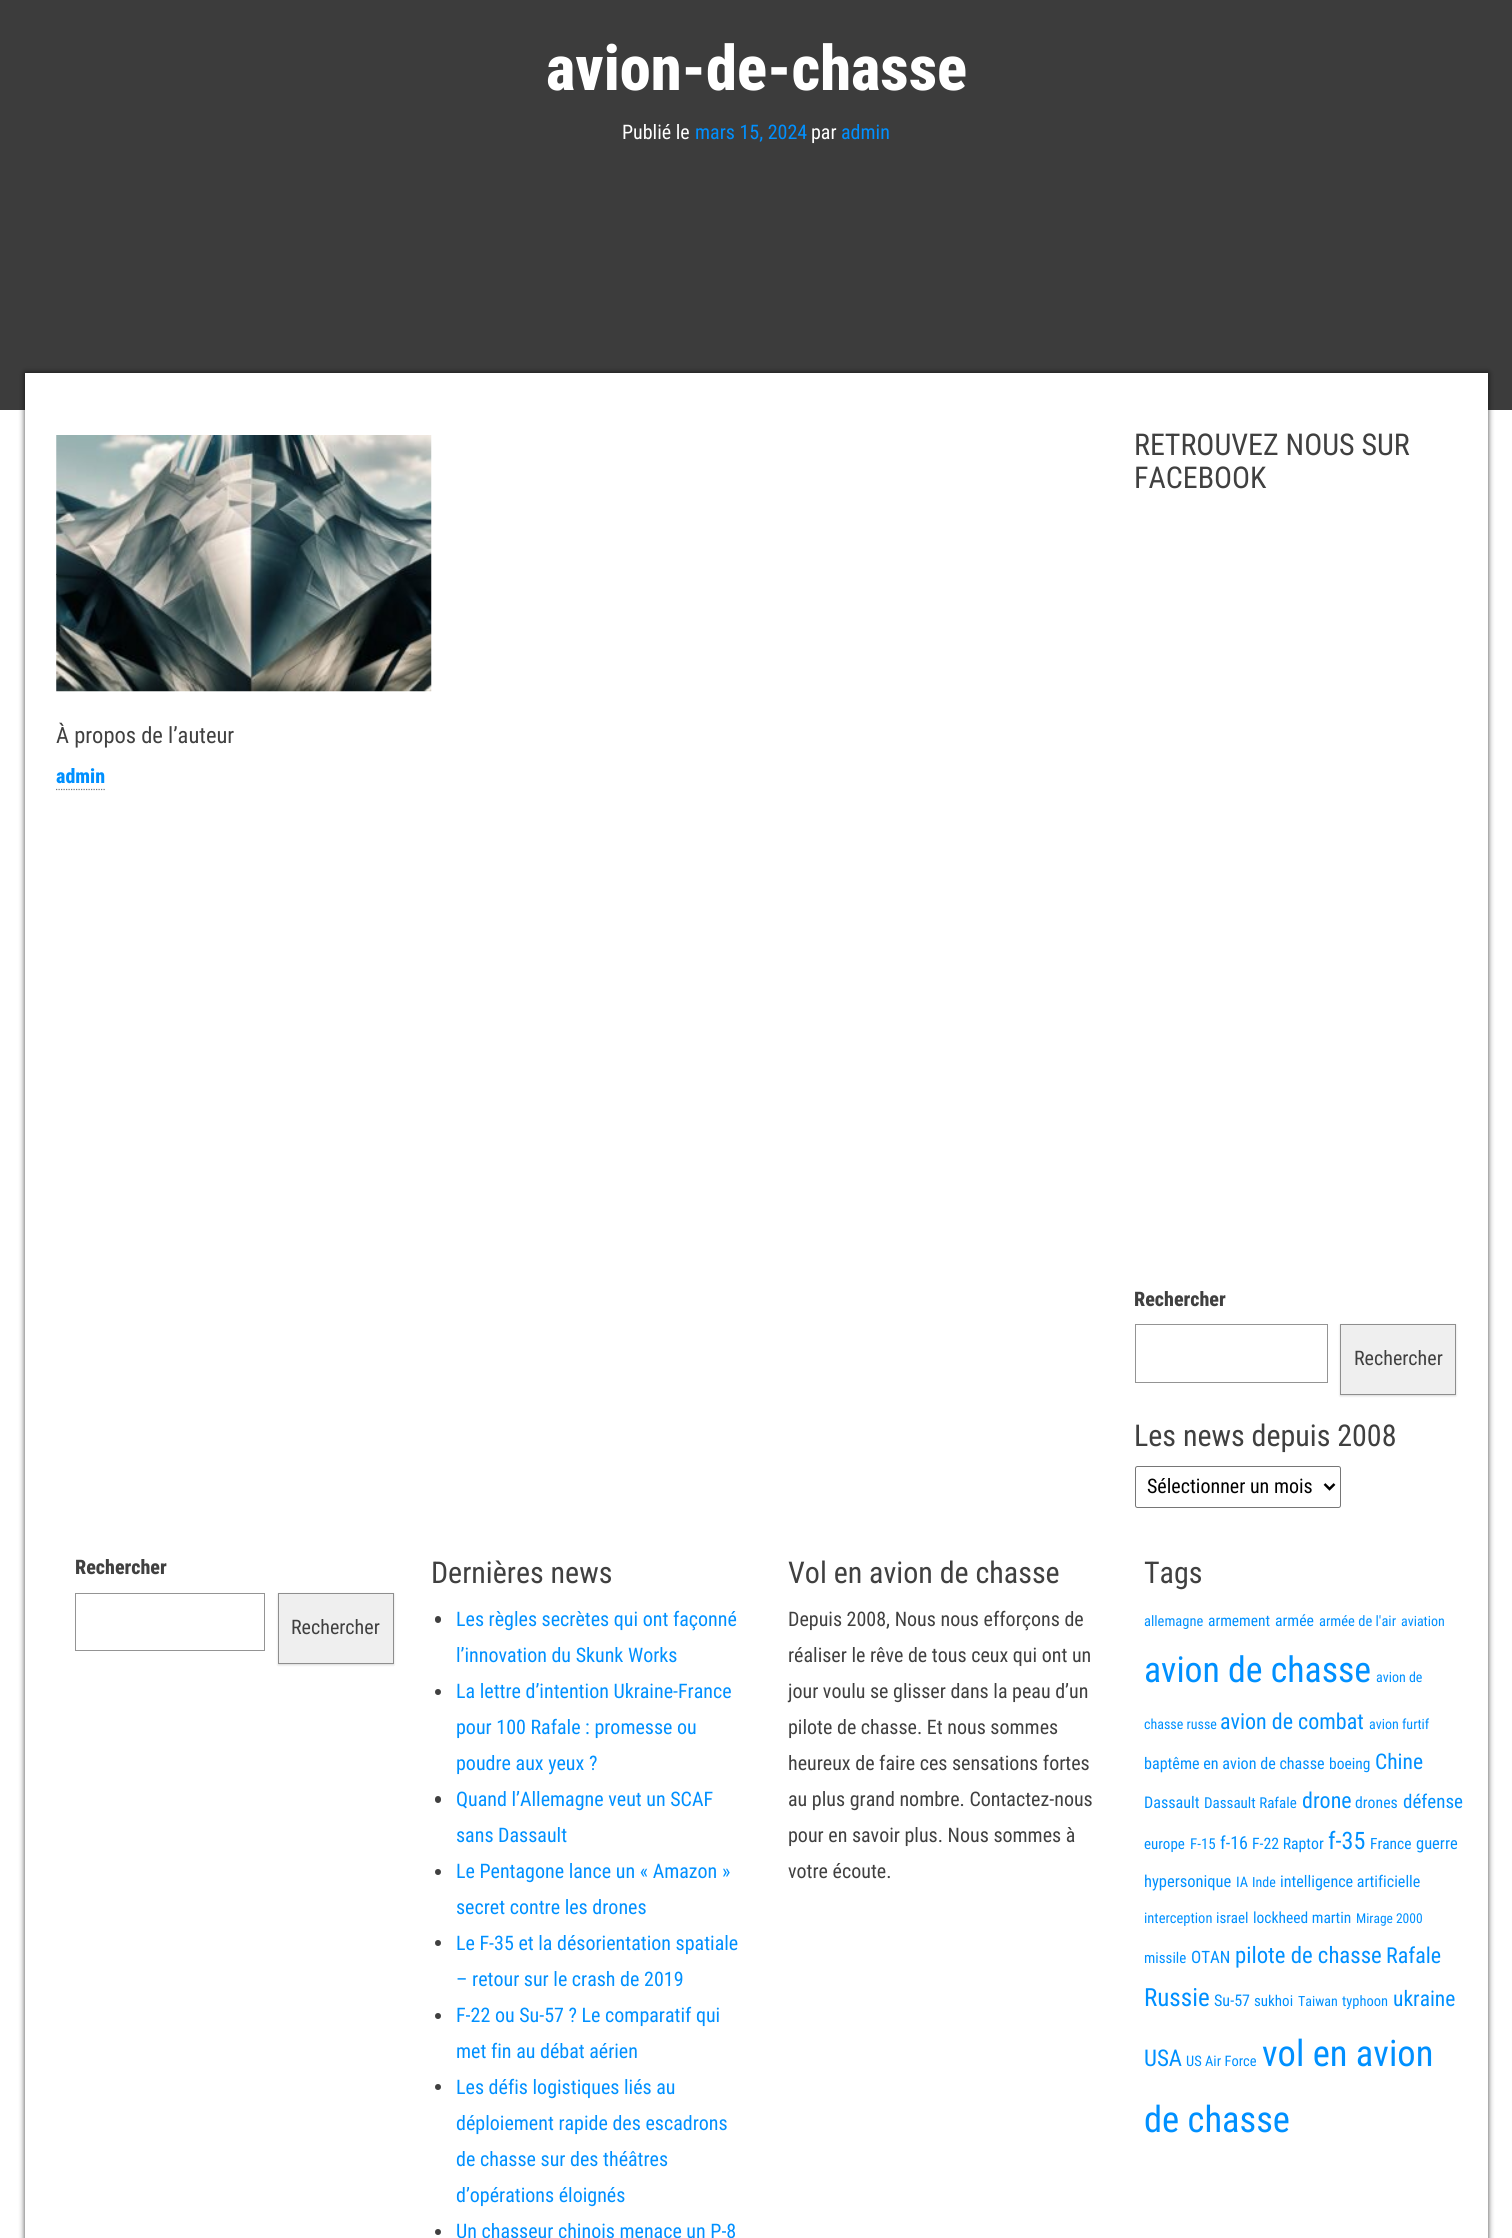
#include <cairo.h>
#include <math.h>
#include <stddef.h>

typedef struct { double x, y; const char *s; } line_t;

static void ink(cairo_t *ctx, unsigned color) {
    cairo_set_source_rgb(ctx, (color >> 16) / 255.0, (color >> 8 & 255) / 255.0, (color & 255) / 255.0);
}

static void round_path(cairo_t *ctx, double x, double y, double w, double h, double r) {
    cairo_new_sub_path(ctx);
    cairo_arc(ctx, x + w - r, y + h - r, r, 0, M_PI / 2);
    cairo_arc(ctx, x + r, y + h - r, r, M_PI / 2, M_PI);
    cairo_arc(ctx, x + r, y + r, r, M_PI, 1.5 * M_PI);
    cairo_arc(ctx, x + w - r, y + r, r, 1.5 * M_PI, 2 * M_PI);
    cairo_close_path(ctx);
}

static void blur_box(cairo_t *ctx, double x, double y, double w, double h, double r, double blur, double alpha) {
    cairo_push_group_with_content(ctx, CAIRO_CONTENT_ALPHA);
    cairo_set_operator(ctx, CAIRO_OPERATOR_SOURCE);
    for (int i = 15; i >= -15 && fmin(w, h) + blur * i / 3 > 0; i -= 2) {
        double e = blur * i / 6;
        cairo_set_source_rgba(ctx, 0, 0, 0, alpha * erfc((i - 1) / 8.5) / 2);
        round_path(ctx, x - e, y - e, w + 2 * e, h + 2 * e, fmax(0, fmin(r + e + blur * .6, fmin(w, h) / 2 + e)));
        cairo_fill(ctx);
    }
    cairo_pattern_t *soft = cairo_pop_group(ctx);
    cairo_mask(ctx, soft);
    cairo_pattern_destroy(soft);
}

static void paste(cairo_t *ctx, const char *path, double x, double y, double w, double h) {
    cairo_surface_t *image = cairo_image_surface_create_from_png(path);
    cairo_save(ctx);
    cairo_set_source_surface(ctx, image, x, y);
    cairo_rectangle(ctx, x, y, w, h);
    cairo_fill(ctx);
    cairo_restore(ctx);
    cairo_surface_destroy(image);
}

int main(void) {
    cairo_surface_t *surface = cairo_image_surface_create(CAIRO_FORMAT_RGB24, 1512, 2238);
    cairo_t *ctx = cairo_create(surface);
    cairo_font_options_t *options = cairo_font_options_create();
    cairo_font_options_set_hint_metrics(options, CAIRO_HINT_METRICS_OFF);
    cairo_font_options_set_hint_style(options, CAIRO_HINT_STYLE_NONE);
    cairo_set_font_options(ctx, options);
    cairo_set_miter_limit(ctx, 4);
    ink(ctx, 0xFFFFFF);
    cairo_paint(ctx);
    ink(ctx, 0x3C3C3C);
    cairo_rectangle(ctx, 0, 0, 1512, 410);
    cairo_fill(ctx);
    cairo_select_font_face(ctx, "Roboto Condensed ExtraBold", CAIRO_FONT_SLANT_NORMAL, CAIRO_FONT_WEIGHT_NORMAL);
    cairo_set_font_size(ctx, 62.5);
    ink(ctx, 0xFFFFFF);
    cairo_move_to(ctx, 546, 90);
    cairo_show_text(ctx, "avion-de-chasse");
    cairo_select_font_face(ctx, "Roboto Condensed", CAIRO_FONT_SLANT_NORMAL, CAIRO_FONT_WEIGHT_NORMAL);
    cairo_set_font_size(ctx, 20);
    cairo_move_to(ctx, 622, 139);
    cairo_show_text(ctx, "Publié le");
    ink(ctx, 0x0090FF);
    cairo_move_to(ctx, 695, 139);
    cairo_show_text(ctx, "mars 15, 2024");
    ink(ctx, 0xFFFFFF);
    cairo_move_to(ctx, 811, 139);
    cairo_show_text(ctx, "par");
    ink(ctx, 0x0090FF);
    cairo_move_to(ctx, 841, 139);
    cairo_show_text(ctx, "admin");
    ink(ctx, 0x000000);
    blur_box(ctx, 25, 373, 1463, 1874, 0, 3, 0.75);
    ink(ctx, 0xFFFFFF);
    cairo_rectangle(ctx, 25, 373, 1463, 1865);
    cairo_fill(ctx);
    cairo_new_path(ctx);
    cairo_move_to(ctx, 56, 574.5);
    cairo_line_to(ctx, 431, 574.5);
    ink(ctx, 0x777777);
    cairo_set_line_width(ctx, 1.2);
    cairo_set_dash(ctx, (double[]){1.25, 1.25}, 2, 0);
    cairo_stroke(ctx);
    paste(ctx, "media/1.png", 56, 435, 376, 257);
    cairo_set_font_size(ctx, 22.5);
    ink(ctx, 0x404040);
    cairo_move_to(ctx, 56, 743);
    cairo_show_text(ctx, "À propos de l’auteur");
    cairo_select_font_face(ctx, "Roboto Condensed ExtraBold", CAIRO_FONT_SLANT_NORMAL, CAIRO_FONT_WEIGHT_NORMAL);
    cairo_set_font_size(ctx, 20);
    ink(ctx, 0x0090FF);
    cairo_move_to(ctx, 56, 783);
    cairo_show_text(ctx, "admin");
    cairo_new_path(ctx);
    cairo_move_to(ctx, 56, 789.5);
    cairo_line_to(ctx, 105, 789.5);
    ink(ctx, 0x777777);
    cairo_stroke(ctx);
    cairo_select_font_face(ctx, "Roboto Condensed", CAIRO_FONT_SLANT_NORMAL, CAIRO_FONT_WEIGHT_NORMAL);
    cairo_set_font_size(ctx, 30);
    ink(ctx, 0x404040);
    cairo_move_to(ctx, 1134, 455);
    cairo_show_text(ctx, "RETROUVEZ NOUS SUR");
    cairo_move_to(ctx, 1134, 488);
    cairo_show_text(ctx, "FACEBOOK");
    cairo_select_font_face(ctx, "Roboto Condensed ExtraBold", CAIRO_FONT_SLANT_NORMAL, CAIRO_FONT_WEIGHT_NORMAL);
    cairo_set_font_size(ctx, 20);
    cairo_move_to(ctx, 1134, 1306);
    cairo_show_text(ctx, "Rechercher");
    cairo_rectangle(ctx, 1135.5, 1324.5, 192, 58);
    ink(ctx, 0x949494);
    cairo_set_line_width(ctx, 1);
    cairo_set_dash(ctx, NULL, 0, 0);
    cairo_stroke(ctx);
    ink(ctx, 0x000000);
    blur_box(ctx, 1340, 1325, 116, 71, 0, 1, 0.15);
    ink(ctx, 0xEFEFEF);
    cairo_rectangle(ctx, 1340.5, 1324.5, 115, 70);
    cairo_fill_preserve(ctx);
    ink(ctx, 0x8E8E8E);
    cairo_stroke(ctx);
    cairo_select_font_face(ctx, "Roboto Condensed", CAIRO_FONT_SLANT_NORMAL, CAIRO_FONT_WEIGHT_NORMAL);
    ink(ctx, 0x404040);
    cairo_move_to(ctx, 1354, 1365);
    cairo_show_text(ctx, "Rechercher");
    cairo_set_font_size(ctx, 30);
    cairo_move_to(ctx, 1134, 1446);
    cairo_show_text(ctx, "Les news depuis 2008");
    round_path(ctx, 1135.5, 1466.5, 205, 41, 2);
    ink(ctx, 0x767676);
    cairo_stroke(ctx);
    cairo_new_path(ctx);
    cairo_move_to(ctx, 1324.5, 1484);
    cairo_line_to(ctx, 1329.5, 1489);
    cairo_line_to(ctx, 1334.5, 1484);
    ink(ctx, 0x000000);
    cairo_set_line_width(ctx, 2.5);
    cairo_stroke(ctx);
    cairo_set_font_size(ctx, 20);
    cairo_move_to(ctx, 1147, 1493);
    cairo_show_text(ctx, "Sélectionner un mois");
    cairo_select_font_face(ctx, "Roboto Condensed ExtraBold", CAIRO_FONT_SLANT_NORMAL, CAIRO_FONT_WEIGHT_NORMAL);
    ink(ctx, 0x404040);
    cairo_move_to(ctx, 75, 1574);
    cairo_show_text(ctx, "Rechercher");
    cairo_rectangle(ctx, 75.5, 1593.5, 189, 57);
    ink(ctx, 0x949494);
    cairo_set_line_width(ctx, 1);
    cairo_stroke(ctx);
    ink(ctx, 0x000000);
    blur_box(ctx, 278, 1594, 116, 71, 0, 1, 0.15);
    ink(ctx, 0xEFEFEF);
    cairo_rectangle(ctx, 278.5, 1593.5, 115, 70);
    cairo_fill_preserve(ctx);
    ink(ctx, 0x8E8E8E);
    cairo_stroke(ctx);
    cairo_select_font_face(ctx, "Roboto Condensed", CAIRO_FONT_SLANT_NORMAL, CAIRO_FONT_WEIGHT_NORMAL);
    ink(ctx, 0x404040);
    cairo_move_to(ctx, 291, 1634);
    cairo_show_text(ctx, "Rechercher");
    cairo_set_font_size(ctx, 30);
    cairo_move_to(ctx, 431, 1583);
    cairo_show_text(ctx, "Dernières news");
    round_path(ctx, 435, 1616, 6, 7, 3);
    cairo_fill(ctx);
    cairo_set_font_size(ctx, 20);
    ink(ctx, 0x0090FF);
    cairo_move_to(ctx, 456, 1626);
    cairo_show_text(ctx, "Les règles secrètes qui ont façonné");
    cairo_move_to(ctx, 456, 1662);
    cairo_show_text(ctx, "l’innovation du Skunk Works");
    ink(ctx, 0x404040);
    cairo_new_path(ctx);
    cairo_arc(ctx, 438, 1692, 3, 0, 2 * M_PI);
    cairo_fill(ctx);
    ink(ctx, 0x0090FF);
    {
        static const line_t items[] = {
            {456, 1698, "La lettre d’intention Ukraine-France"},
            {456, 1734, "pour 100 Rafale : promesse ou"},
            {456, 1770, "poudre aux yeux ?"},
        };
        for (size_t i = 0; i < sizeof items / sizeof *items; i++) {
            cairo_move_to(ctx, items[i].x, items[i].y);
            cairo_show_text(ctx, items[i].s);
        }
    }
    ink(ctx, 0x404040);
    round_path(ctx, 435, 1796, 6, 7, 3);
    cairo_fill(ctx);
    ink(ctx, 0x0090FF);
    cairo_move_to(ctx, 456, 1806);
    cairo_show_text(ctx, "Quand l’Allemagne veut un SCAF");
    cairo_move_to(ctx, 456, 1842);
    cairo_show_text(ctx, "sans Dassault");
    ink(ctx, 0x404040);
    cairo_new_path(ctx);
    cairo_arc(ctx, 438, 1872, 3, 0, 2 * M_PI);
    cairo_fill(ctx);
    ink(ctx, 0x0090FF);
    cairo_move_to(ctx, 456, 1878);
    cairo_show_text(ctx, "Le Pentagone lance un « Amazon »");
    cairo_move_to(ctx, 456, 1914);
    cairo_show_text(ctx, "secret contre les drones");
    ink(ctx, 0x404040);
    cairo_new_path(ctx);
    cairo_arc(ctx, 438, 1943, 3, 0, 2 * M_PI);
    cairo_fill(ctx);
    ink(ctx, 0x0090FF);
    cairo_move_to(ctx, 456, 1950);
    cairo_show_text(ctx, "Le F-35 et la désorientation spatiale");
    cairo_move_to(ctx, 456, 1986);
    cairo_show_text(ctx, "– retour sur le crash de 2019");
    ink(ctx, 0x404040);
    cairo_new_path(ctx);
    cairo_arc(ctx, 438, 2016, 3, 0, 2 * M_PI);
    cairo_fill(ctx);
    ink(ctx, 0x0090FF);
    cairo_move_to(ctx, 456, 2022);
    cairo_show_text(ctx, "F-22 ou Su-57 ? Le comparatif qui");
    cairo_move_to(ctx, 456, 2058);
    cairo_show_text(ctx, "met fin au débat aérien");
    ink(ctx, 0x404040);
    cairo_new_path(ctx);
    cairo_arc(ctx, 438, 2087, 3, 0, 2 * M_PI);
    cairo_fill(ctx);
    ink(ctx, 0x0090FF);
    {
        static const line_t items[] = {
            {456, 2094, "Les défis logistiques liés au"},
            {456, 2130, "déploiement rapide des escadrons"},
            {456, 2166, "de chasse sur des théâtres"},
            {456, 2202, "d’opérations éloignés"},
        };
        for (size_t i = 0; i < sizeof items / sizeof *items; i++) {
            cairo_move_to(ctx, items[i].x, items[i].y);
            cairo_show_text(ctx, items[i].s);
        }
    }
    ink(ctx, 0x404040);
    cairo_new_path(ctx);
    cairo_arc(ctx, 438, 2232, 3, 0, 2 * M_PI);
    cairo_fill(ctx);
    ink(ctx, 0x0090FF);
    cairo_move_to(ctx, 456, 2238);
    cairo_show_text(ctx, "Un chasseur chinois menace un P-8");
    cairo_set_font_size(ctx, 30);
    ink(ctx, 0x404040);
    cairo_move_to(ctx, 788, 1583);
    cairo_show_text(ctx, "Vol en avion de chasse");
    cairo_set_font_size(ctx, 20);
    {
        static const line_t items[] = {
            {788, 1626, "Depuis 2008, Nous nous efforçons de"},
            {788, 1662, "réaliser le rêve de tous ceux qui ont un"},
            {788, 1698, "jour voulu se glisser dans la peau d’un"},
            {788, 1734, "pilote de chasse. Et nous sommes"},
            {788, 1770, "heureux de faire ces sensations fortes"},
            {788, 1806, "au plus grand nombre. Contactez-nous"},
            {788, 1842, "pour en savoir plus. Nous sommes à"},
            {788, 1878, "votre écoute."},
        };
        for (size_t i = 0; i < sizeof items / sizeof *items; i++) {
            cairo_move_to(ctx, items[i].x, items[i].y);
            cairo_show_text(ctx, items[i].s);
        }
    }
    cairo_set_font_size(ctx, 30);
    cairo_move_to(ctx, 1144, 1583);
    cairo_show_text(ctx, "Tags");
    cairo_set_font_size(ctx, 14.5);
    ink(ctx, 0x0090FF);
    cairo_move_to(ctx, 1144, 1626);
    cairo_show_text(ctx, "allemagne");
    cairo_set_font_size(ctx, 15.5);
    cairo_move_to(ctx, 1208, 1626);
    cairo_show_text(ctx, "armement");
    cairo_set_font_size(ctx, 15.75);
    cairo_move_to(ctx, 1275, 1626);
    cairo_show_text(ctx, "armée");
    cairo_set_font_size(ctx, 14.5);
    cairo_move_to(ctx, 1319, 1626);
    cairo_show_text(ctx, "armée de l'air");
    cairo_set_font_size(ctx, 14);
    cairo_move_to(ctx, 1401, 1626);
    cairo_show_text(ctx, "aviation");
    cairo_set_font_size(ctx, 35.75);
    cairo_move_to(ctx, 1144, 1682);
    cairo_show_text(ctx, "avion de chasse");
    cairo_set_font_size(ctx, 14);
    cairo_move_to(ctx, 1376, 1682);
    cairo_show_text(ctx, "avion de");
    cairo_move_to(ctx, 1144, 1729);
    cairo_show_text(ctx, "chasse russe");
    cairo_set_font_size(ctx, 22);
    cairo_move_to(ctx, 1220, 1729);
    cairo_show_text(ctx, "avion de combat");
    cairo_set_font_size(ctx, 14);
    cairo_move_to(ctx, 1369, 1729);
    cairo_show_text(ctx, "avion furtif");
    cairo_set_font_size(ctx, 16.1);
    cairo_move_to(ctx, 1144, 1769);
    cairo_show_text(ctx, "baptême en avion de chasse");
    cairo_set_font_size(ctx, 15.5);
    cairo_move_to(ctx, 1329, 1769);
    cairo_show_text(ctx, "boeing");
    cairo_set_font_size(ctx, 21.5);
    cairo_move_to(ctx, 1375, 1769);
    cairo_show_text(ctx, "Chine");
    cairo_set_font_size(ctx, 16.1);
    cairo_move_to(ctx, 1144, 1808);
    cairo_show_text(ctx, "Dassault");
    cairo_set_font_size(ctx, 15);
    cairo_move_to(ctx, 1204, 1808);
    cairo_show_text(ctx, "Dassault Rafale");
    cairo_set_font_size(ctx, 22);
    cairo_move_to(ctx, 1302, 1808);
    cairo_show_text(ctx, "drone");
    cairo_set_font_size(ctx, 15.75);
    cairo_move_to(ctx, 1355, 1808);
    cairo_show_text(ctx, "drones");
    cairo_set_font_size(ctx, 19);
    cairo_move_to(ctx, 1403, 1808);
    cairo_show_text(ctx, "défense");
    cairo_set_font_size(ctx, 15);
    cairo_move_to(ctx, 1144, 1849);
    cairo_show_text(ctx, "europe");
    cairo_move_to(ctx, 1190, 1849);
    cairo_show_text(ctx, "F-15");
    cairo_set_font_size(ctx, 18);
    cairo_move_to(ctx, 1220, 1849);
    cairo_show_text(ctx, "f-16");
    cairo_set_font_size(ctx, 15.75);
    cairo_move_to(ctx, 1252, 1849);
    cairo_show_text(ctx, "F-22 Raptor");
    cairo_set_font_size(ctx, 24);
    cairo_move_to(ctx, 1328, 1849);
    cairo_show_text(ctx, "f-35");
    cairo_set_font_size(ctx, 15.5);
    cairo_move_to(ctx, 1370, 1849);
    cairo_show_text(ctx, "France");
    cairo_set_font_size(ctx, 16.5);
    cairo_move_to(ctx, 1416, 1849);
    cairo_show_text(ctx, "guerre");
    cairo_move_to(ctx, 1144, 1887);
    cairo_show_text(ctx, "hypersonique");
    cairo_set_font_size(ctx, 14.5);
    cairo_move_to(ctx, 1236, 1887);
    cairo_show_text(ctx, "IA");
    cairo_set_font_size(ctx, 14);
    cairo_move_to(ctx, 1252, 1887);
    cairo_show_text(ctx, "Inde");
    cairo_set_font_size(ctx, 16.1);
    cairo_move_to(ctx, 1280, 1887);
    cairo_show_text(ctx, "intelligence artificielle");
    cairo_set_font_size(ctx, 14.5);
    cairo_move_to(ctx, 1144, 1923);
    cairo_show_text(ctx, "interception");
    cairo_set_font_size(ctx, 15);
    cairo_move_to(ctx, 1216, 1923);
    cairo_show_text(ctx, "israel");
    cairo_set_font_size(ctx, 15.5);
    cairo_move_to(ctx, 1253, 1923);
    cairo_show_text(ctx, "lockheed martin");
    cairo_set_font_size(ctx, 13.5);
    cairo_move_to(ctx, 1356, 1923);
    cairo_show_text(ctx, "Mirage 2000");
    cairo_set_font_size(ctx, 15);
    cairo_move_to(ctx, 1144, 1963);
    cairo_show_text(ctx, "missile");
    cairo_set_font_size(ctx, 17);
    cairo_move_to(ctx, 1191, 1963);
    cairo_show_text(ctx, "OTAN");
    cairo_set_font_size(ctx, 22.75);
    cairo_move_to(ctx, 1235, 1963);
    cairo_show_text(ctx, "pilote de chasse");
    cairo_set_font_size(ctx, 22);
    cairo_move_to(ctx, 1386, 1963);
    cairo_show_text(ctx, "Rafale");
    cairo_set_font_size(ctx, 25);
    cairo_move_to(ctx, 1144, 2006);
    cairo_show_text(ctx, "Russie");
    cairo_set_font_size(ctx, 16.1);
    cairo_move_to(ctx, 1214, 2006);
    cairo_show_text(ctx, "Su-57");
    cairo_set_font_size(ctx, 15);
    cairo_move_to(ctx, 1254, 2006);
    cairo_show_text(ctx, "sukhoi");
    cairo_set_font_size(ctx, 14);
    cairo_move_to(ctx, 1298, 2006);
    cairo_show_text(ctx, "Taiwan");
    cairo_set_font_size(ctx, 14.5);
    cairo_move_to(ctx, 1342, 2006);
    cairo_show_text(ctx, "typhoon");
    cairo_set_font_size(ctx, 21.5);
    cairo_move_to(ctx, 1393, 2006);
    cairo_show_text(ctx, "ukraine");
    cairo_set_font_size(ctx, 23);
    cairo_move_to(ctx, 1144, 2066);
    cairo_show_text(ctx, "USA");
    cairo_set_font_size(ctx, 14.5);
    cairo_move_to(ctx, 1186, 2066);
    cairo_show_text(ctx, "US Air Force");
    cairo_set_font_size(ctx, 36.5);
    cairo_move_to(ctx, 1262, 2066);
    cairo_show_text(ctx, "vol en avion");
    cairo_move_to(ctx, 1144, 2132);
    cairo_show_text(ctx, "de chasse");
    cairo_surface_write_to_png(surface, "image.png");
    cairo_font_options_destroy(options);
    cairo_destroy(ctx);
    cairo_surface_destroy(surface);
    return 0;
}
